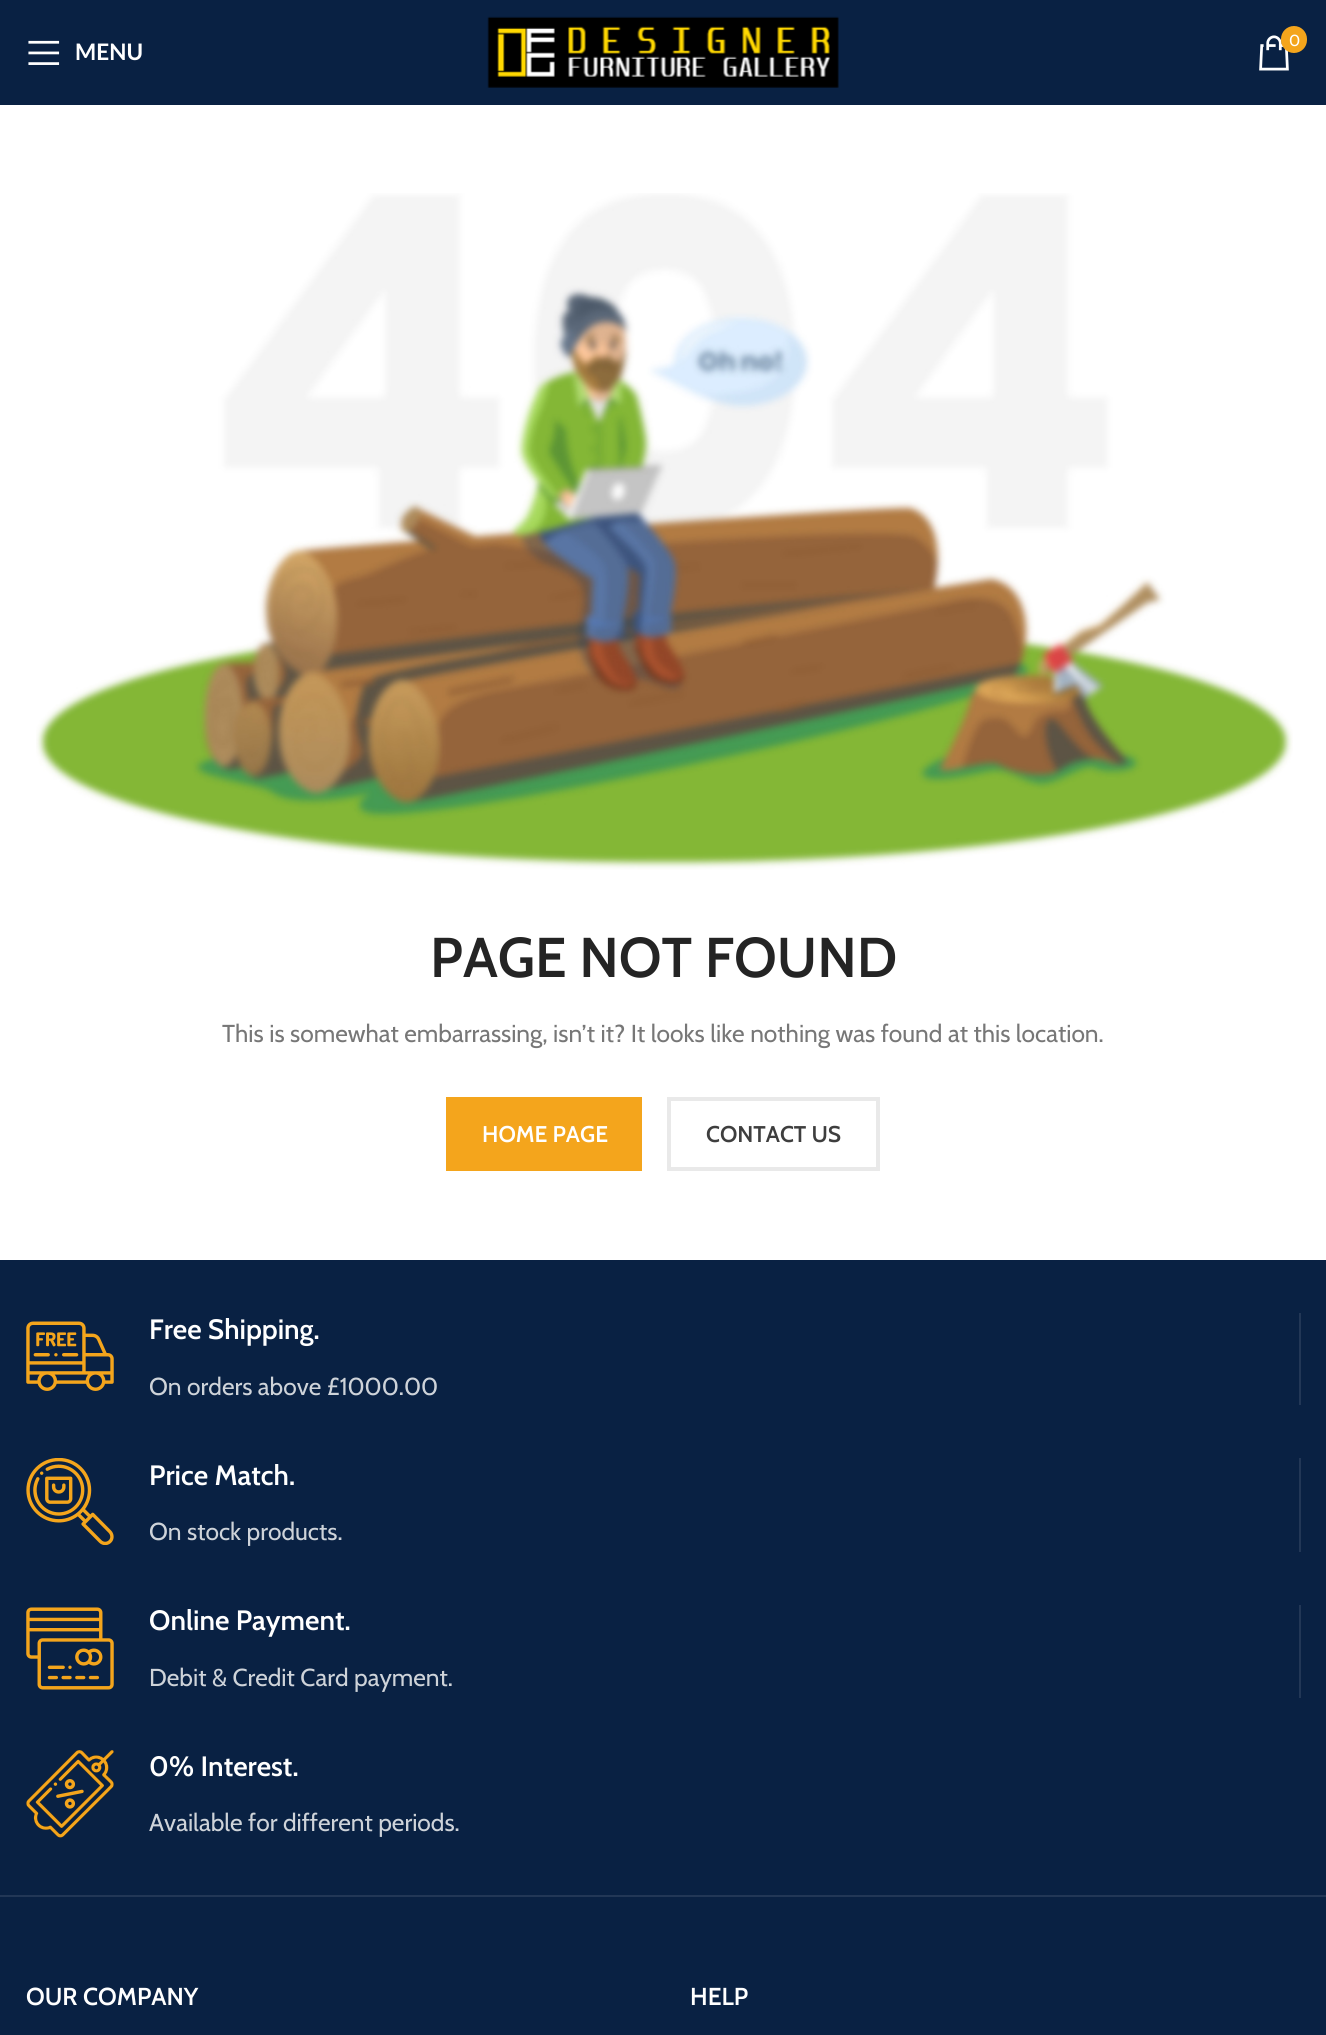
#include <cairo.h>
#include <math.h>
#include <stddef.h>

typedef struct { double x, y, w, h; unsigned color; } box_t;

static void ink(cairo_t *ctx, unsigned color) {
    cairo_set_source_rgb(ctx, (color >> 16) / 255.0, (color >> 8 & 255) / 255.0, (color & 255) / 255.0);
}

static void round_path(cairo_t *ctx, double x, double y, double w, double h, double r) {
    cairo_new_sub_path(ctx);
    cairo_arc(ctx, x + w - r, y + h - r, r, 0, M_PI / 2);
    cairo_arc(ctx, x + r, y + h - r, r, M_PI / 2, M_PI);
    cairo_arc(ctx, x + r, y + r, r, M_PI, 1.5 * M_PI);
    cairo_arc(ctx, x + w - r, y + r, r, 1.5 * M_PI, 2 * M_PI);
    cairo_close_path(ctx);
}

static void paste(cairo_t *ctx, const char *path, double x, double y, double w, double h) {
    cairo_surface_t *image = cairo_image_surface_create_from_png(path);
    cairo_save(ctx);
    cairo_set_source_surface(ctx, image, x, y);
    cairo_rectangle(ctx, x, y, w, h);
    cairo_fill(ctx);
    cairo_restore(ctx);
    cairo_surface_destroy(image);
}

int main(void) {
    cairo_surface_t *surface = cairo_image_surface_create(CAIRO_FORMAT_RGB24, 1326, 2035);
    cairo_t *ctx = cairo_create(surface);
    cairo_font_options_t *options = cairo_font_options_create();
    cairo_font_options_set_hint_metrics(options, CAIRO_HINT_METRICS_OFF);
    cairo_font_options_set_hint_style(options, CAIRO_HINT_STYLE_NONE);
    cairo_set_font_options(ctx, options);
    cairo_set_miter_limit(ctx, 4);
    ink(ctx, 0xFFFFFF);
    cairo_paint(ctx);
    ink(ctx, 0x092143);
    cairo_rectangle(ctx, 0, 0, 1326, 105);
    cairo_fill(ctx);
    paste(ctx, "media/1.png", 487, 16, 352, 72);
    paste(ctx, "media/2.png", 1259, 35, 30, 36);
    ink(ctx, 0xF4A51C);
    round_path(ctx, 1281, 26, 26, 27, 13);
    cairo_fill(ctx);
    cairo_select_font_face(ctx, "Cabin", CAIRO_FONT_SLANT_NORMAL, CAIRO_FONT_WEIGHT_NORMAL);
    cairo_set_font_size(ctx, 16);
    ink(ctx, 0xFFFFFF);
    cairo_move_to(ctx, 1289, 46);
    cairo_show_text(ctx, "0");
    paste(ctx, "media/3.png", 28, 40, 32, 25);
    cairo_select_font_face(ctx, "Lato", CAIRO_FONT_SLANT_NORMAL, CAIRO_FONT_WEIGHT_BOLD);
    cairo_set_font_size(ctx, 22.75);
    cairo_move_to(ctx, 75, 60);
    cairo_show_text(ctx, "MENU");
    paste(ctx, "media/4.png", 36, 193, 1257, 677);
    cairo_select_font_face(ctx, "Cabin SemiBold", CAIRO_FONT_SLANT_NORMAL, CAIRO_FONT_WEIGHT_NORMAL);
    cairo_set_font_size(ctx, 56);
    ink(ctx, 0x242424);
    cairo_move_to(ctx, 430, 977);
    cairo_show_text(ctx, "PAGE NOT FOUND");
    cairo_select_font_face(ctx, "Cabin", CAIRO_FONT_SLANT_NORMAL, CAIRO_FONT_WEIGHT_NORMAL);
    cairo_set_font_size(ctx, 24.5);
    ink(ctx, 0x777777);
    cairo_move_to(ctx, 222, 1042);
    cairo_show_text(ctx, "This is somewhat embarrassing, isn’t it? It looks like nothing was found at this location.");
    ink(ctx, 0xF4A51C);
    cairo_rectangle(ctx, 446, 1097, 196, 74);
    cairo_fill(ctx);
    cairo_select_font_face(ctx, "Cabin SemiBold", CAIRO_FONT_SLANT_NORMAL, CAIRO_FONT_WEIGHT_NORMAL);
    cairo_set_font_size(ctx, 22.75);
    ink(ctx, 0xFFFFFF);
    cairo_move_to(ctx, 482, 1142);
    cairo_show_text(ctx, "HOME PAGE");
    cairo_rectangle(ctx, 669, 1099, 209, 70);
    ink(ctx, 0xE9E9E9);
    cairo_set_line_width(ctx, 4);
    cairo_stroke(ctx);
    ink(ctx, 0x3E3E3E);
    cairo_move_to(ctx, 706, 1142);
    cairo_show_text(ctx, "CONTACT US");
    {
        static const box_t items[] = {
            {0, 1260, 1326, 635, 0x092143},
            {0, 1895, 1326, 2, 0x223756},
            {1299, 1313, 2, 92, 0x223756},
        };
        for (size_t i = 0; i < sizeof items / sizeof *items; i++) {
            ink(ctx, items[i].color);
            cairo_rectangle(ctx, items[i].x, items[i].y, items[i].w, items[i].h);
            cairo_fill(ctx);
        }
    }
    paste(ctx, "media/5.png", 26, 1321, 88, 70);
    cairo_set_font_size(ctx, 28);
    ink(ctx, 0xFFFFFF);
    cairo_move_to(ctx, 149, 1339);
    cairo_show_text(ctx, "Free Shipping.");
    cairo_select_font_face(ctx, "Cabin", CAIRO_FONT_SLANT_NORMAL, CAIRO_FONT_WEIGHT_NORMAL);
    cairo_set_font_size(ctx, 24.5);
    ink(ctx, 0xCED3D9);
    cairo_move_to(ctx, 149, 1395);
    cairo_show_text(ctx, "On orders above £1000.00");
    ink(ctx, 0x223756);
    cairo_rectangle(ctx, 1299, 1458, 2, 94);
    cairo_fill(ctx);
    paste(ctx, "media/6.png", 26, 1458, 88, 87);
    cairo_select_font_face(ctx, "Cabin SemiBold", CAIRO_FONT_SLANT_NORMAL, CAIRO_FONT_WEIGHT_NORMAL);
    cairo_set_font_size(ctx, 28);
    ink(ctx, 0xFFFFFF);
    cairo_move_to(ctx, 149, 1485);
    cairo_show_text(ctx, "Price Match.");
    cairo_select_font_face(ctx, "Cabin", CAIRO_FONT_SLANT_NORMAL, CAIRO_FONT_WEIGHT_NORMAL);
    cairo_set_font_size(ctx, 24.5);
    ink(ctx, 0xCED3D9);
    cairo_move_to(ctx, 149, 1540);
    cairo_show_text(ctx, "On stock products.");
    ink(ctx, 0x223756);
    cairo_rectangle(ctx, 1299, 1605, 2, 93);
    cairo_fill(ctx);
    paste(ctx, "media/7.png", 26, 1607, 88, 83);
    cairo_select_font_face(ctx, "Cabin SemiBold", CAIRO_FONT_SLANT_NORMAL, CAIRO_FONT_WEIGHT_NORMAL);
    cairo_set_font_size(ctx, 28);
    ink(ctx, 0xFFFFFF);
    cairo_move_to(ctx, 149, 1630);
    cairo_show_text(ctx, "Online Payment.");
    cairo_select_font_face(ctx, "Cabin", CAIRO_FONT_SLANT_NORMAL, CAIRO_FONT_WEIGHT_NORMAL);
    cairo_set_font_size(ctx, 24.5);
    ink(ctx, 0xCED3D9);
    cairo_move_to(ctx, 149, 1686);
    cairo_show_text(ctx, "Debit & Credit Card payment.");
    paste(ctx, "media/8.png", 26, 1750, 88, 88);
    cairo_select_font_face(ctx, "Cabin SemiBold", CAIRO_FONT_SLANT_NORMAL, CAIRO_FONT_WEIGHT_NORMAL);
    cairo_set_font_size(ctx, 28);
    ink(ctx, 0xFFFFFF);
    cairo_move_to(ctx, 149, 1776);
    cairo_show_text(ctx, "0% Interest.");
    cairo_select_font_face(ctx, "Cabin", CAIRO_FONT_SLANT_NORMAL, CAIRO_FONT_WEIGHT_NORMAL);
    cairo_set_font_size(ctx, 24.5);
    ink(ctx, 0xCED3D9);
    cairo_move_to(ctx, 149, 1831);
    cairo_show_text(ctx, "Available for different periods.");
    ink(ctx, 0x092143);
    cairo_rectangle(ctx, 0, 1897, 1326, 138);
    cairo_fill(ctx);
    cairo_select_font_face(ctx, "Cabin SemiBold", CAIRO_FONT_SLANT_NORMAL, CAIRO_FONT_WEIGHT_NORMAL);
    ink(ctx, 0xFFFFFF);
    cairo_move_to(ctx, 26, 2005);
    cairo_show_text(ctx, "OUR COMPANY");
    cairo_move_to(ctx, 690, 2005);
    cairo_show_text(ctx, "HELP");
    cairo_surface_write_to_png(surface, "image.png");
    cairo_font_options_destroy(options);
    cairo_destroy(ctx);
    cairo_surface_destroy(surface);
    return 0;
}
